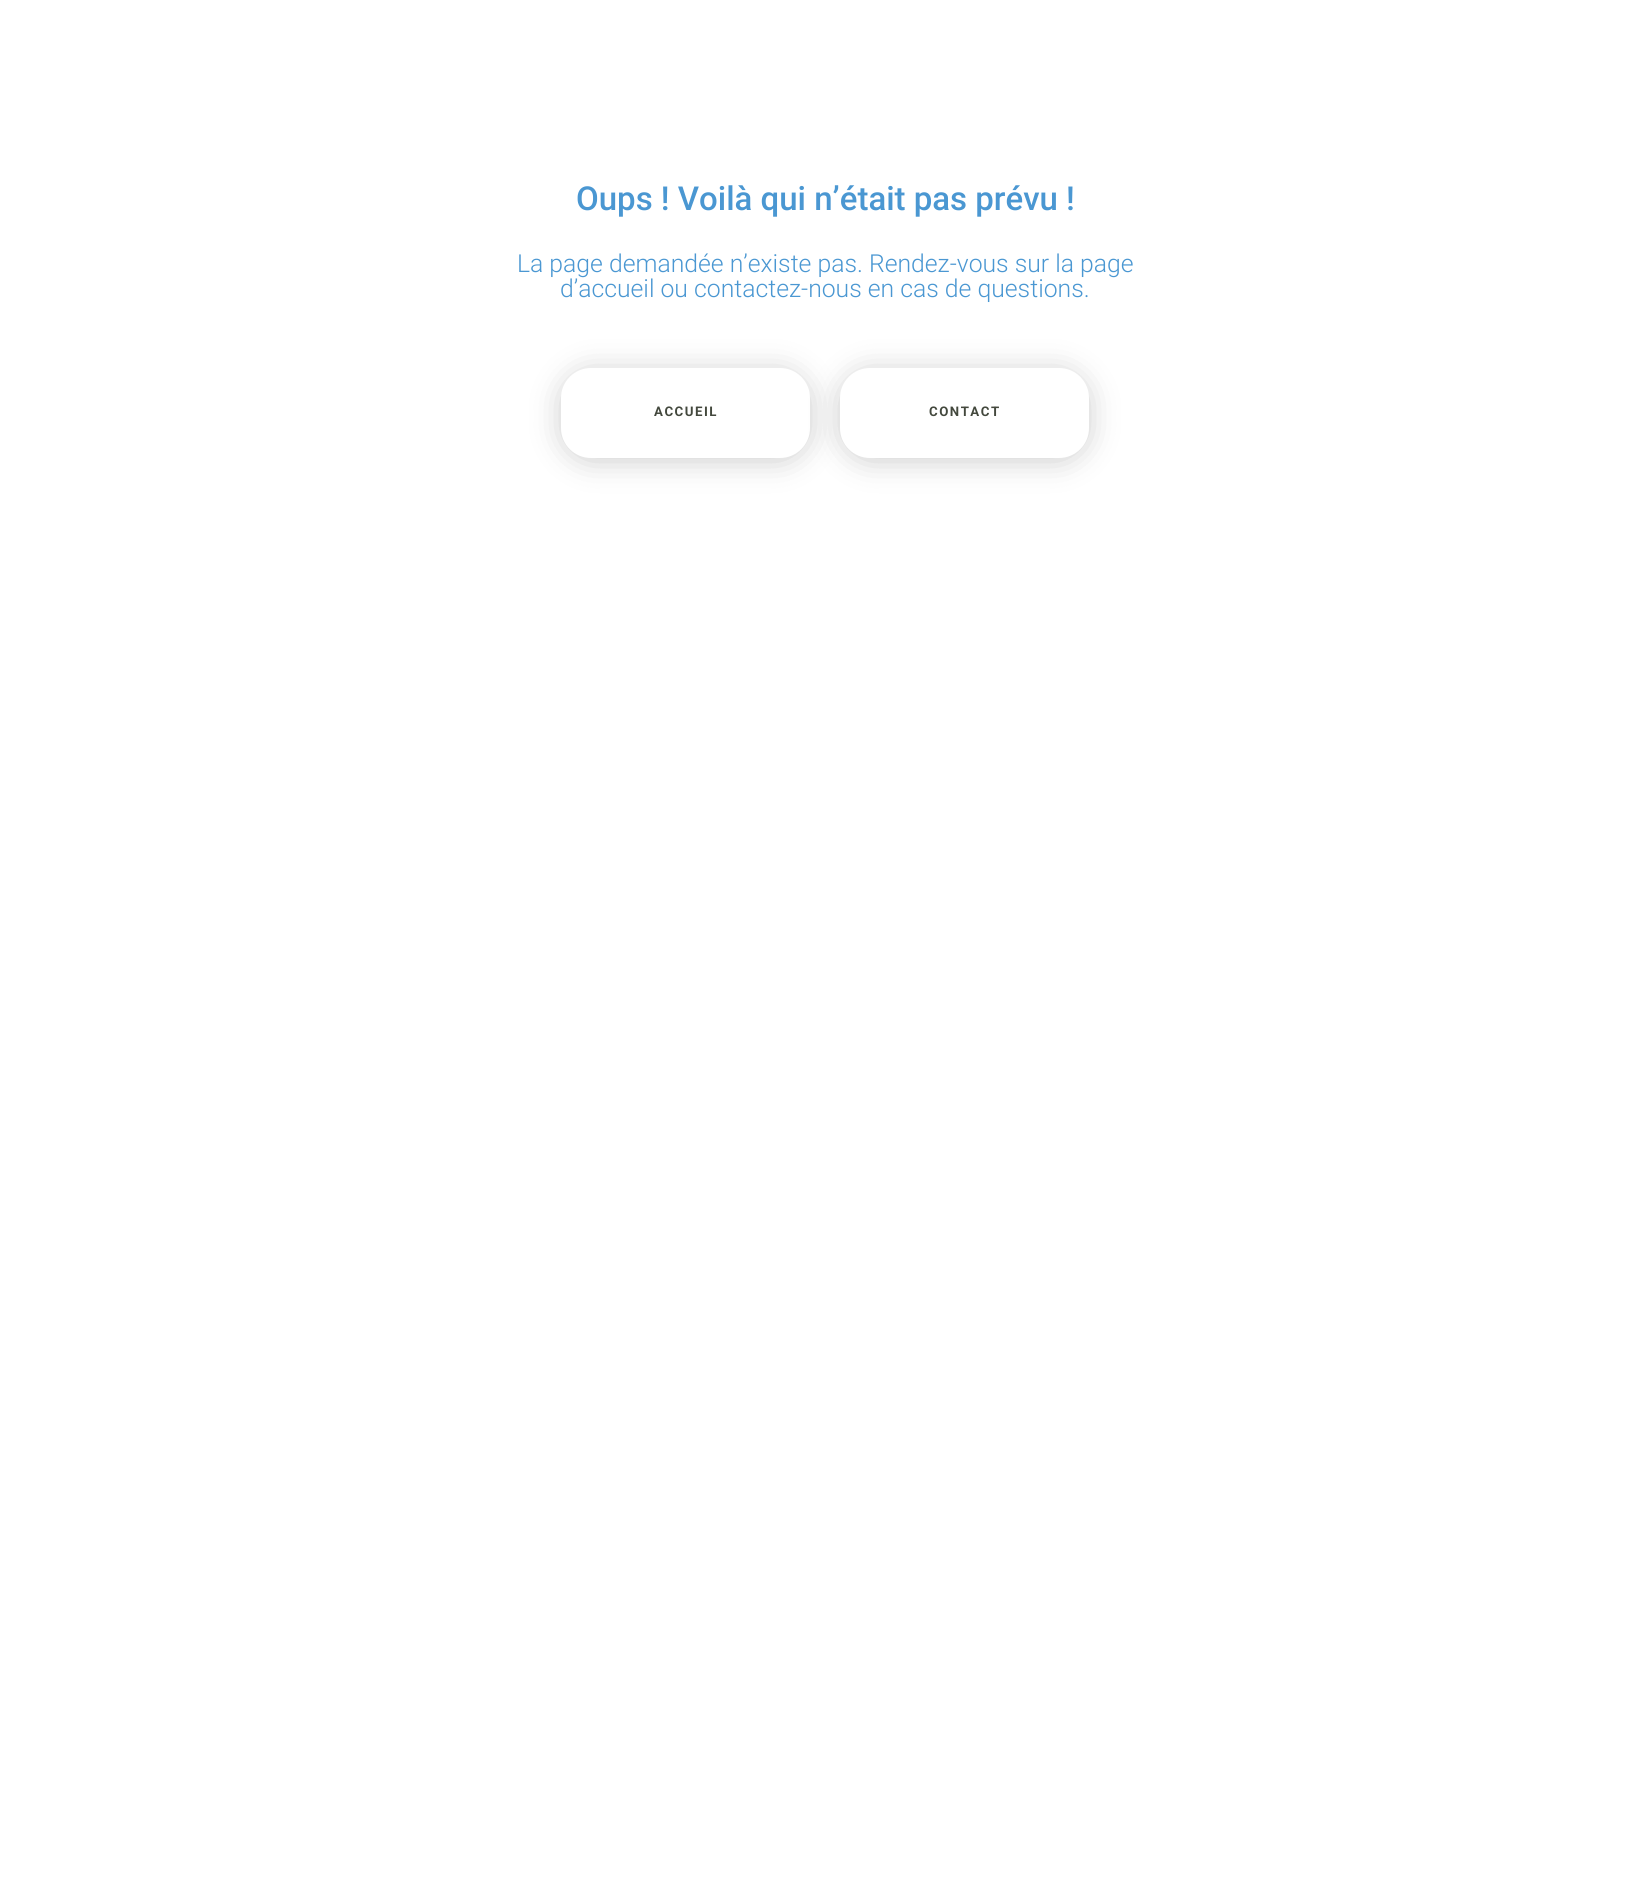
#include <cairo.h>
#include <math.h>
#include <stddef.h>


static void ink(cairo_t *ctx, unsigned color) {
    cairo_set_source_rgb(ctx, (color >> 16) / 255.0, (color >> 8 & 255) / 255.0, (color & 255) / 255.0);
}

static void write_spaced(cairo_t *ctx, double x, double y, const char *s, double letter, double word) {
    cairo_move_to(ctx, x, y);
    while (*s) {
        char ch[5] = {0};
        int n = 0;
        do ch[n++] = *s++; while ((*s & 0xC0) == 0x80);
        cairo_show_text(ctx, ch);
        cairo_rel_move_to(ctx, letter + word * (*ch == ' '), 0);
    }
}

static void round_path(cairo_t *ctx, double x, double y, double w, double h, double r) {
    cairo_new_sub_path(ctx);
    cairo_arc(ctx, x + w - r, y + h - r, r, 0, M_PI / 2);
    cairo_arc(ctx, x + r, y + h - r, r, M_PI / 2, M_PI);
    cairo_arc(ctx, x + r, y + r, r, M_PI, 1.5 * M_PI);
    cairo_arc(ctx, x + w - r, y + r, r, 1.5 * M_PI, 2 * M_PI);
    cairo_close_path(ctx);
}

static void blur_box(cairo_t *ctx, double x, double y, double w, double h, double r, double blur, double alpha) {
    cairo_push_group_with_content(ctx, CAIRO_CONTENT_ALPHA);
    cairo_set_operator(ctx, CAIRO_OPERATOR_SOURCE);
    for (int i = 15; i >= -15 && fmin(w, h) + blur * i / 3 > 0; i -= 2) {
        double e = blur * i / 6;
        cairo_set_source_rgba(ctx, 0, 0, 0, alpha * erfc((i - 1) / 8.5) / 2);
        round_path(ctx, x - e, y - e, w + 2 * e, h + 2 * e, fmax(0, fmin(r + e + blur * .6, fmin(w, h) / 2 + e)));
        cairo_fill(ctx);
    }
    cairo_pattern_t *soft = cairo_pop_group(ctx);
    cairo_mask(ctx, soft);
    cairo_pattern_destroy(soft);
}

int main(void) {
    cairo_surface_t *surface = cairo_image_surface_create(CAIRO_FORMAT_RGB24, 1650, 1904);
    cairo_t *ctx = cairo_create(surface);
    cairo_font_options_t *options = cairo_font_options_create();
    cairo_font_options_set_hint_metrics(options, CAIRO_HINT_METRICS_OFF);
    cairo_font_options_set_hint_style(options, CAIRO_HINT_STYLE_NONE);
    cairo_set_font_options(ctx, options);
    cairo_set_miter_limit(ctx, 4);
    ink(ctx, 0xFFFFFF);
    cairo_paint(ctx);
    cairo_select_font_face(ctx, "Roboto Medium", CAIRO_FONT_SLANT_NORMAL, CAIRO_FONT_WEIGHT_NORMAL);
    cairo_set_font_size(ctx, 33);
    ink(ctx, 0x4A97D2);
    cairo_move_to(ctx, 576, 210);
    cairo_show_text(ctx, "Oups ! Voilà qui n’était pas prévu !");
    cairo_select_font_face(ctx, "Roboto Light", CAIRO_FONT_SLANT_NORMAL, CAIRO_FONT_WEIGHT_NORMAL);
    cairo_set_font_size(ctx, 24.75);
    cairo_move_to(ctx, 517, 272);
    cairo_show_text(ctx, "La page demandée n’existe pas. Rendez-vous sur la page");
    cairo_move_to(ctx, 560, 297);
    cairo_show_text(ctx, "d’accueil ou contactez-nous en cas de questions.");
    ink(ctx, 0x000000);
    blur_box(ctx, 561, 371, 249, 90, 30, 15, 0.2);
    ink(ctx, 0xFFFFFF);
    round_path(ctx, 561, 368, 249, 90, 30);
    cairo_fill(ctx);
    cairo_select_font_face(ctx, "Roboto", CAIRO_FONT_SLANT_NORMAL, CAIRO_FONT_WEIGHT_BOLD);
    cairo_set_font_size(ctx, 13.25);
    ink(ctx, 0x43483D);
    write_spaced(ctx, 654, 416, "ACCUEIL", 1.5, 0);
    ink(ctx, 0x000000);
    blur_box(ctx, 840, 371, 249, 90, 30, 15, 0.2);
    ink(ctx, 0xFFFFFF);
    round_path(ctx, 840, 368, 249, 90, 30);
    cairo_fill(ctx);
    ink(ctx, 0x43483D);
    write_spaced(ctx, 929, 416, "CONTACT", 1.5, 0);
    cairo_surface_write_to_png(surface, "image.png");
    cairo_font_options_destroy(options);
    cairo_destroy(ctx);
    cairo_surface_destroy(surface);
    return 0;
}
